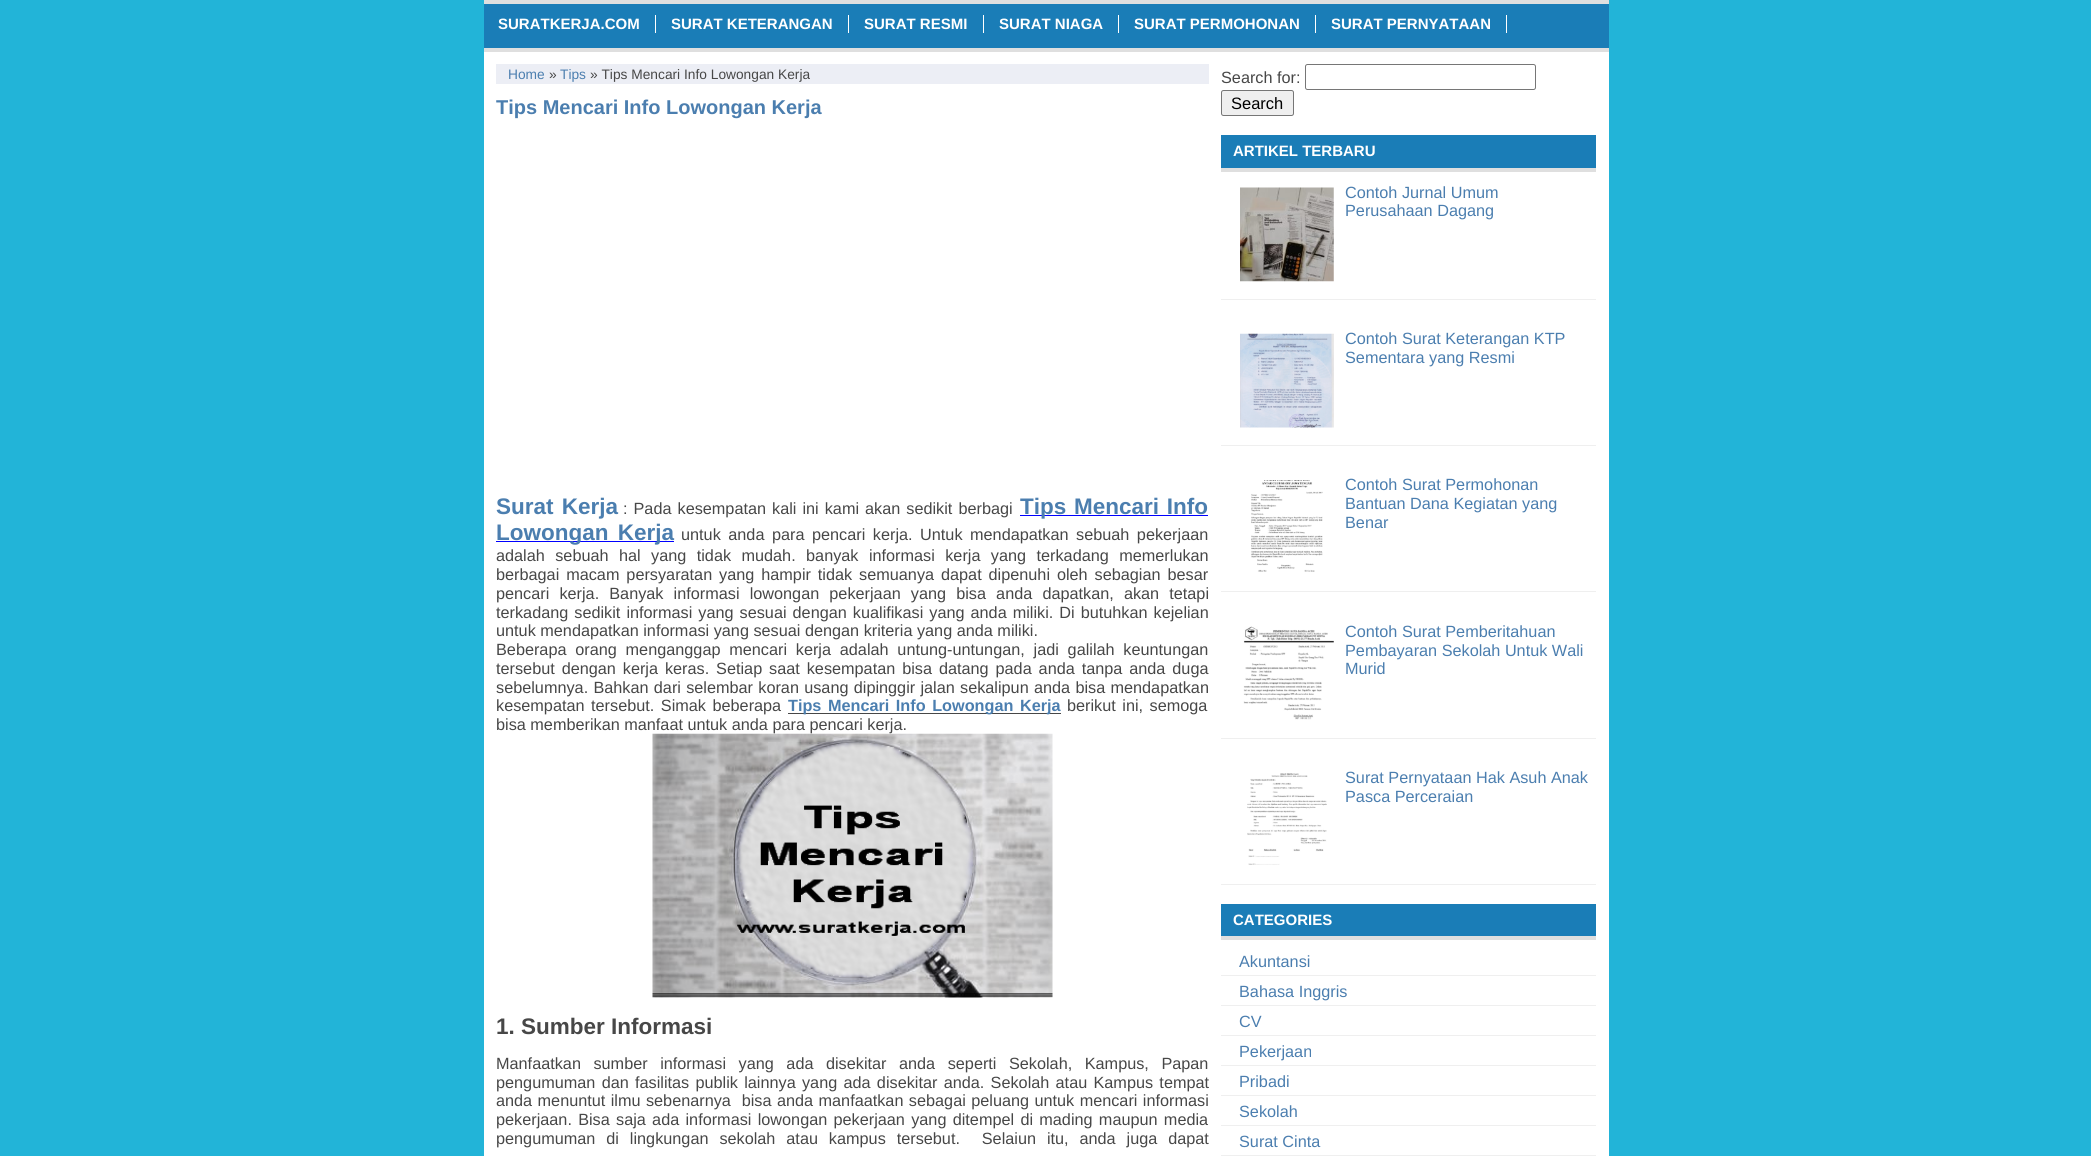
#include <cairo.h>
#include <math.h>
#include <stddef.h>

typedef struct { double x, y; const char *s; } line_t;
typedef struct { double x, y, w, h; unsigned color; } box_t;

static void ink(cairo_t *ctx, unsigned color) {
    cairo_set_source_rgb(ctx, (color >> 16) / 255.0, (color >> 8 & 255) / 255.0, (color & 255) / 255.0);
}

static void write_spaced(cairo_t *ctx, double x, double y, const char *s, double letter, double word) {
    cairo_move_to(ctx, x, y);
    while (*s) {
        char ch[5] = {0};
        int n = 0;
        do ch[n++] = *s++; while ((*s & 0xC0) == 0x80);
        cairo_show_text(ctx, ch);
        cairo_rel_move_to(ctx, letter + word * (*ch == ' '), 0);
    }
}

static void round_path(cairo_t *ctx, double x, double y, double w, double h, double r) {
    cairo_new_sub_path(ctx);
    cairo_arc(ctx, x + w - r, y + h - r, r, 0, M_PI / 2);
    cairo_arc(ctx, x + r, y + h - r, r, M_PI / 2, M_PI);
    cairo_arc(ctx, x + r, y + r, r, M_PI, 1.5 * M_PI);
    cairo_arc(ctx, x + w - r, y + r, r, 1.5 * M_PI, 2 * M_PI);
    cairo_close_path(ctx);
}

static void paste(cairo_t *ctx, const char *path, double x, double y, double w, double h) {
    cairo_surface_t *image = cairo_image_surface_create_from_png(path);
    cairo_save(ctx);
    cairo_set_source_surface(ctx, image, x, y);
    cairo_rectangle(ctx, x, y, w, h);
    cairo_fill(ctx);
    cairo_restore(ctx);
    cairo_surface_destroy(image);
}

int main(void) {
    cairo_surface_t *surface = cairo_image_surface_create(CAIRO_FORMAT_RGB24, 2091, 1156);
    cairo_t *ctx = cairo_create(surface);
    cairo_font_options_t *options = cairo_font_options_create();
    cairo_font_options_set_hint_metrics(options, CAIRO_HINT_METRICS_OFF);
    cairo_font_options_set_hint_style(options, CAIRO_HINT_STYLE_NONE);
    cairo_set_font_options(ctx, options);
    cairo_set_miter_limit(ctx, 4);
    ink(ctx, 0x22B4D8);
    cairo_paint(ctx);
    {
        static const box_t items[] = {
            {484, 52, 1125, 1104, 0xFFFFFF},
            {484, 4, 1125, 44, 0x1A7DB7},
            {484, 0, 1125, 4, 0xDFDFDF},
            {484, 48, 1125, 4, 0xDFDFDF},
            {655, 15, 1, 18, 0xFFFFFF},
        };
        for (size_t i = 0; i < sizeof items / sizeof *items; i++) {
            ink(ctx, items[i].color);
            cairo_rectangle(ctx, items[i].x, items[i].y, items[i].w, items[i].h);
            cairo_fill(ctx);
        }
    }
    cairo_select_font_face(ctx, "Liberation Sans", CAIRO_FONT_SLANT_NORMAL, CAIRO_FONT_WEIGHT_BOLD);
    cairo_set_font_size(ctx, 15);
    cairo_move_to(ctx, 498, 29);
    cairo_show_text(ctx, "SURATKERJA.COM");
    cairo_rectangle(ctx, 848, 15, 1, 18);
    cairo_fill(ctx);
    cairo_move_to(ctx, 671, 29);
    cairo_show_text(ctx, "SURAT KETERANGAN");
    cairo_rectangle(ctx, 983, 15, 1, 18);
    cairo_fill(ctx);
    cairo_move_to(ctx, 864, 29);
    cairo_show_text(ctx, "SURAT RESMI");
    cairo_rectangle(ctx, 1118, 15, 1, 18);
    cairo_fill(ctx);
    cairo_move_to(ctx, 999, 29);
    cairo_show_text(ctx, "SURAT NIAGA");
    cairo_rectangle(ctx, 1315, 15, 1, 18);
    cairo_fill(ctx);
    cairo_move_to(ctx, 1134, 29);
    cairo_show_text(ctx, "SURAT PERMOHONAN");
    cairo_rectangle(ctx, 1506, 15, 1, 18);
    cairo_fill(ctx);
    cairo_move_to(ctx, 1331, 29);
    cairo_show_text(ctx, "SURAT PERNYATAAN");
    ink(ctx, 0xECEEF5);
    cairo_rectangle(ctx, 496, 64, 713, 20);
    cairo_fill(ctx);
    cairo_select_font_face(ctx, "Liberation Sans", CAIRO_FONT_SLANT_NORMAL, CAIRO_FONT_WEIGHT_NORMAL);
    cairo_set_font_size(ctx, 13.75);
    ink(ctx, 0x4B7EAF);
    cairo_move_to(ctx, 508, 79);
    cairo_show_text(ctx, "Home");
    ink(ctx, 0x474747);
    cairo_move_to(ctx, 549, 79);
    cairo_show_text(ctx, "»");
    ink(ctx, 0x4B7EAF);
    cairo_move_to(ctx, 560, 79);
    cairo_show_text(ctx, "Tips");
    ink(ctx, 0x474747);
    cairo_move_to(ctx, 590, 79);
    cairo_show_text(ctx, "» Tips Mencari Info Lowongan Kerja");
    cairo_select_font_face(ctx, "Liberation Sans", CAIRO_FONT_SLANT_NORMAL, CAIRO_FONT_WEIGHT_BOLD);
    cairo_set_font_size(ctx, 20);
    ink(ctx, 0x4B7EAF);
    cairo_move_to(ctx, 496, 114);
    cairo_show_text(ctx, "Tips Mencari Info Lowongan Kerja");
    cairo_set_font_size(ctx, 22.5);
    write_spaced(ctx, 496, 514, "Surat Kerja", 0, 2);
    cairo_select_font_face(ctx, "Liberation Sans", CAIRO_FONT_SLANT_NORMAL, CAIRO_FONT_WEIGHT_NORMAL);
    cairo_set_font_size(ctx, 16.25);
    ink(ctx, 0x474747);
    write_spaced(ctx, 623, 514, ": Pada kesempatan kali ini kami akan sedikit berbagi", 0, 1.5);
    ink(ctx, 0x0000FF);
    cairo_rectangle(ctx, 1020, 515, 188, 1);
    cairo_fill(ctx);
    cairo_select_font_face(ctx, "Liberation Sans", CAIRO_FONT_SLANT_NORMAL, CAIRO_FONT_WEIGHT_BOLD);
    cairo_set_font_size(ctx, 22.5);
    ink(ctx, 0x4B7EAF);
    write_spaced(ctx, 1020, 514, "Tips Mencari Info", 0, 1.5);
    ink(ctx, 0x0000FF);
    cairo_rectangle(ctx, 496, 541, 178, 1);
    cairo_fill(ctx);
    ink(ctx, 0x4B7EAF);
    write_spaced(ctx, 496, 540, "Lowongan Kerja", 0, 3);
    cairo_select_font_face(ctx, "Liberation Sans", CAIRO_FONT_SLANT_NORMAL, CAIRO_FONT_WEIGHT_NORMAL);
    cairo_set_font_size(ctx, 16.25);
    ink(ctx, 0x474747);
    write_spaced(ctx, 681, 540, "untuk anda para pencari kerja. Untuk mendapatkan sebuah pekerjaan", 0, 3);
    write_spaced(ctx, 496, 561, "adalah sebuah hal yang tidak mudah. banyak informasi kerja yang terkadang memerlukan", 0, 5.9);
    write_spaced(ctx, 496, 580, "berbagai macam persyaratan yang hampir tidak semuanya dapat dipenuhi oleh sebagian besar", 0, 2.4);
    write_spaced(ctx, 496, 599, "pencari kerja. Banyak informasi lowongan pekerjaan yang bisa anda dapatkan, akan tetapi", 0, 5.6);
    write_spaced(ctx, 496, 618, "terkadang sedikit informasi yang sesuai dengan kualifikasi yang anda miliki. Di butuhkan kejelian", 0, 1.5);
    cairo_move_to(ctx, 496, 636);
    cairo_show_text(ctx, "untuk mendapatkan informasi yang sesuai dengan kriteria yang anda miliki.");
    write_spaced(ctx, 496, 655, "Beberapa orang menganggap mencari kerja adalah untung-untungan, jadi galilah keuntungan", 0, 4.25);
    write_spaced(ctx, 496, 674, "tersebut dengan kerja keras. Setiap saat kesempatan bisa datang pada anda tanpa anda duga", 0, 2.4);
    write_spaced(ctx, 496, 693, "sebelumnya. Bahkan dari selembar koran usang dipinggir jalan sekalipun anda bisa mendapatkan", 0, 0.75);
    write_spaced(ctx, 496, 711, "kesempatan tersebut. Simak beberapa", 0, 2);
    cairo_rectangle(ctx, 788, 713, 273, 1);
    cairo_fill(ctx);
    cairo_select_font_face(ctx, "Liberation Sans", CAIRO_FONT_SLANT_NORMAL, CAIRO_FONT_WEIGHT_BOLD);
    ink(ctx, 0x4B7EAF);
    write_spaced(ctx, 788, 711, "Tips Mencari Info Lowongan Kerja", 0, 2);
    cairo_select_font_face(ctx, "Liberation Sans", CAIRO_FONT_SLANT_NORMAL, CAIRO_FONT_WEIGHT_NORMAL);
    ink(ctx, 0x474747);
    write_spaced(ctx, 1067, 711, "berikut ini, semoga", 0, 2);
    cairo_move_to(ctx, 496, 730);
    cairo_show_text(ctx, "bisa memberikan manfaat untuk anda para pencari kerja.");
    paste(ctx, "media/1.png", 652, 733, 401, 265);
    cairo_select_font_face(ctx, "Liberation Sans", CAIRO_FONT_SLANT_NORMAL, CAIRO_FONT_WEIGHT_BOLD);
    cairo_set_font_size(ctx, 22.5);
    cairo_move_to(ctx, 496, 1034);
    cairo_show_text(ctx, "1. Sumber Informasi");
    cairo_select_font_face(ctx, "Liberation Sans", CAIRO_FONT_SLANT_NORMAL, CAIRO_FONT_WEIGHT_NORMAL);
    cairo_set_font_size(ctx, 16.25);
    write_spaced(ctx, 496, 1069, "Manfaatkan sumber informasi yang ada disekitar anda seperti Sekolah, Kampus, Papan", 0, 8);
    write_spaced(ctx, 496, 1088, "pengumuman dan fasilitas publik lainnya yang ada disekitar anda. Sekolah atau Kampus tempat", 0, 1.75);
    write_spaced(ctx, 496, 1106, "anda menuntut ilmu sebenarnya  bisa anda manfaatkan sebagai peluang untuk mencari informasi", 0, 0.9);
    write_spaced(ctx, 496, 1125, "pekerjaan. Bisa saja ada informasi lowongan pekerjaan yang ditempel di mading maupun media", 0, 1.75);
    write_spaced(ctx, 496, 1144, "pengumuman di lingkungan sekolah atau kampus tersebut.  Selaiun itu, anda juga dapat", 0, 6.4);
    cairo_move_to(ctx, 1221, 83);
    cairo_show_text(ctx, "Search for:");
    round_path(ctx, 1305.5, 64.5, 230, 25, 2);
    ink(ctx, 0x767676);
    cairo_set_line_width(ctx, 1);
    cairo_stroke(ctx);
    ink(ctx, 0xEFEFEF);
    round_path(ctx, 1221.5, 90.5, 72, 25, 2);
    cairo_fill_preserve(ctx);
    ink(ctx, 0x767676);
    cairo_stroke(ctx);
    cairo_set_font_size(ctx, 16.5);
    ink(ctx, 0x000000);
    cairo_move_to(ctx, 1231, 109);
    cairo_show_text(ctx, "Search");
    ink(ctx, 0x1A7DB7);
    cairo_rectangle(ctx, 1221, 135, 375, 33);
    cairo_fill(ctx);
    ink(ctx, 0xDFDFDF);
    cairo_rectangle(ctx, 1221, 168, 375, 4);
    cairo_fill(ctx);
    cairo_select_font_face(ctx, "Liberation Sans", CAIRO_FONT_SLANT_NORMAL, CAIRO_FONT_WEIGHT_BOLD);
    cairo_set_font_size(ctx, 15);
    ink(ctx, 0xFFFFFF);
    cairo_move_to(ctx, 1233, 156);
    cairo_show_text(ctx, "ARTIKEL TERBARU");
    ink(ctx, 0xEFEFEF);
    cairo_rectangle(ctx, 1221, 299, 375, 1);
    cairo_fill(ctx);
    paste(ctx, "media/2.png", 1240, 187, 94, 95);
    cairo_select_font_face(ctx, "Liberation Sans", CAIRO_FONT_SLANT_NORMAL, CAIRO_FONT_WEIGHT_NORMAL);
    cairo_set_font_size(ctx, 16.25);
    ink(ctx, 0x4B7EAF);
    cairo_move_to(ctx, 1345, 198);
    cairo_show_text(ctx, "Contoh Jurnal Umum");
    cairo_move_to(ctx, 1345, 216);
    cairo_show_text(ctx, "Perusahaan Dagang");
    ink(ctx, 0xEFEFEF);
    cairo_rectangle(ctx, 1221, 445, 375, 1);
    cairo_fill(ctx);
    paste(ctx, "media/3.png", 1240, 333, 94, 95);
    ink(ctx, 0x4B7EAF);
    cairo_move_to(ctx, 1345, 344);
    cairo_show_text(ctx, "Contoh Surat Keterangan KTP");
    cairo_move_to(ctx, 1345, 363);
    cairo_show_text(ctx, "Sementara yang Resmi");
    ink(ctx, 0xEFEFEF);
    cairo_rectangle(ctx, 1221, 591, 375, 1);
    cairo_fill(ctx);
    paste(ctx, "media/4.png", 1251, 480, 72, 92);
    ink(ctx, 0x4B7EAF);
    {
        static const line_t items[] = {
            {1345, 490, "Contoh Surat Permohonan"},
            {1345, 509, "Bantuan Dana Kegiatan yang"},
            {1345, 528, "Benar"},
        };
        for (size_t i = 0; i < sizeof items / sizeof *items; i++) {
            cairo_move_to(ctx, items[i].x, items[i].y);
            cairo_show_text(ctx, items[i].s);
        }
    }
    ink(ctx, 0xEFEFEF);
    cairo_rectangle(ctx, 1221, 738, 375, 1);
    cairo_fill(ctx);
    paste(ctx, "media/5.png", 1243, 626, 91, 94);
    ink(ctx, 0x4B7EAF);
    {
        static const line_t items[] = {
            {1345, 637, "Contoh Surat Pemberitahuan"},
            {1345, 656, "Pembayaran Sekolah Untuk Wali"},
            {1345, 674, "Murid"},
        };
        for (size_t i = 0; i < sizeof items / sizeof *items; i++) {
            cairo_move_to(ctx, items[i].x, items[i].y);
            cairo_show_text(ctx, items[i].s);
        }
    }
    ink(ctx, 0xEFEFEF);
    cairo_rectangle(ctx, 1221, 884, 375, 1);
    cairo_fill(ctx);
    paste(ctx, "media/6.png", 1247, 773, 80, 92);
    ink(ctx, 0x4B7EAF);
    cairo_move_to(ctx, 1345, 783);
    cairo_show_text(ctx, "Surat Pernyataan Hak Asuh Anak");
    cairo_move_to(ctx, 1345, 802);
    cairo_show_text(ctx, "Pasca Perceraian");
    ink(ctx, 0x1A7DB7);
    cairo_rectangle(ctx, 1221, 904, 375, 32);
    cairo_fill(ctx);
    ink(ctx, 0xDFDFDF);
    cairo_rectangle(ctx, 1221, 936, 375, 4);
    cairo_fill(ctx);
    cairo_select_font_face(ctx, "Liberation Sans", CAIRO_FONT_SLANT_NORMAL, CAIRO_FONT_WEIGHT_BOLD);
    cairo_set_font_size(ctx, 15);
    ink(ctx, 0xFFFFFF);
    cairo_move_to(ctx, 1233, 925);
    cairo_show_text(ctx, "CATEGORIES");
    ink(ctx, 0xEFEFEF);
    cairo_rectangle(ctx, 1221, 975, 375, 1);
    cairo_fill(ctx);
    cairo_select_font_face(ctx, "Liberation Sans", CAIRO_FONT_SLANT_NORMAL, CAIRO_FONT_WEIGHT_NORMAL);
    cairo_set_font_size(ctx, 16.25);
    ink(ctx, 0x4B7EAF);
    cairo_move_to(ctx, 1239, 967);
    cairo_show_text(ctx, "Akuntansi");
    ink(ctx, 0xEFEFEF);
    cairo_rectangle(ctx, 1221, 1005, 375, 1);
    cairo_fill(ctx);
    ink(ctx, 0x4B7EAF);
    cairo_move_to(ctx, 1239, 997);
    cairo_show_text(ctx, "Bahasa Inggris");
    ink(ctx, 0xEFEFEF);
    cairo_rectangle(ctx, 1221, 1035, 375, 1);
    cairo_fill(ctx);
    ink(ctx, 0x4B7EAF);
    cairo_move_to(ctx, 1239, 1027);
    cairo_show_text(ctx, "CV");
    ink(ctx, 0xEFEFEF);
    cairo_rectangle(ctx, 1221, 1065, 375, 1);
    cairo_fill(ctx);
    ink(ctx, 0x4B7EAF);
    cairo_move_to(ctx, 1239, 1057);
    cairo_show_text(ctx, "Pekerjaan");
    ink(ctx, 0xEFEFEF);
    cairo_rectangle(ctx, 1221, 1095, 375, 1);
    cairo_fill(ctx);
    ink(ctx, 0x4B7EAF);
    cairo_move_to(ctx, 1239, 1087);
    cairo_show_text(ctx, "Pribadi");
    ink(ctx, 0xEFEFEF);
    cairo_rectangle(ctx, 1221, 1125, 375, 1);
    cairo_fill(ctx);
    ink(ctx, 0x4B7EAF);
    cairo_move_to(ctx, 1239, 1117);
    cairo_show_text(ctx, "Sekolah");
    ink(ctx, 0xEFEFEF);
    cairo_rectangle(ctx, 1221, 1155, 375, 1);
    cairo_fill(ctx);
    ink(ctx, 0x4B7EAF);
    cairo_move_to(ctx, 1239, 1147);
    cairo_show_text(ctx, "Surat Cinta");
    cairo_surface_write_to_png(surface, "image.png");
    cairo_font_options_destroy(options);
    cairo_destroy(ctx);
    cairo_surface_destroy(surface);
    return 0;
}
